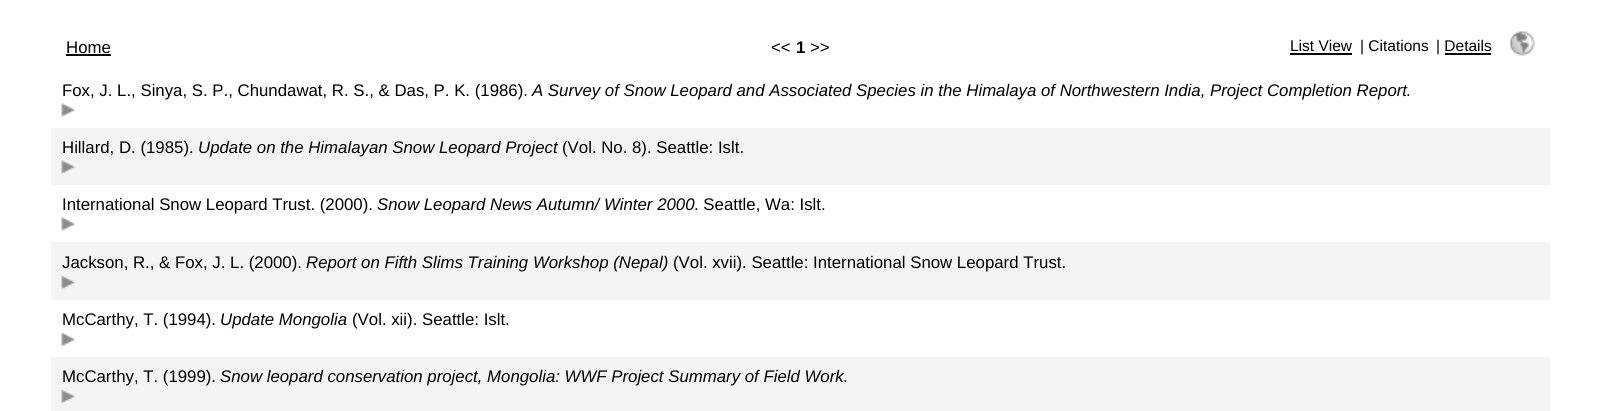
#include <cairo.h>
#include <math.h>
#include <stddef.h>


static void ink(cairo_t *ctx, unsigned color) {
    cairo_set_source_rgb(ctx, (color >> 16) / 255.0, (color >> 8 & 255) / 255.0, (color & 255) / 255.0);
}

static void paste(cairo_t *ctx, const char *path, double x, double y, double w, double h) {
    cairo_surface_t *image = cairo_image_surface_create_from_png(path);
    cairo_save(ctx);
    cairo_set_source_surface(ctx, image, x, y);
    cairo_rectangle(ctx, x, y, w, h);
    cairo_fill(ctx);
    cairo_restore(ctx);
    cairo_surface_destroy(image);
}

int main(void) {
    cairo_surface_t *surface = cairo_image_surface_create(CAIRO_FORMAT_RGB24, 1600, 411);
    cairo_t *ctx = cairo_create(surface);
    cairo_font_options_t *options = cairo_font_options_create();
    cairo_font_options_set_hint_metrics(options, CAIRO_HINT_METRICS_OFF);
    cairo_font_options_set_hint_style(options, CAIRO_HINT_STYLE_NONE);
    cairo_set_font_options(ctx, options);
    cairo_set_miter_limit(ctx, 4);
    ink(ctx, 0xFFFFFF);
    cairo_paint(ctx);
    cairo_select_font_face(ctx, "Liberation Sans", CAIRO_FONT_SLANT_NORMAL, CAIRO_FONT_WEIGHT_NORMAL);
    cairo_set_font_size(ctx, 16.8);
    ink(ctx, 0x000000);
    cairo_move_to(ctx, 66, 53);
    cairo_show_text(ctx, "Home");
    cairo_rectangle(ctx, 66, 54, 45, 2);
    cairo_fill(ctx);
    cairo_move_to(ctx, 771, 53);
    cairo_show_text(ctx, "<<");
    cairo_select_font_face(ctx, "Liberation Sans", CAIRO_FONT_SLANT_NORMAL, CAIRO_FONT_WEIGHT_BOLD);
    cairo_move_to(ctx, 796, 53);
    cairo_show_text(ctx, "1");
    cairo_select_font_face(ctx, "Liberation Sans", CAIRO_FONT_SLANT_NORMAL, CAIRO_FONT_WEIGHT_NORMAL);
    cairo_move_to(ctx, 810, 53);
    cairo_show_text(ctx, ">>");
    cairo_set_font_size(ctx, 15.5);
    cairo_move_to(ctx, 1290, 51);
    cairo_show_text(ctx, "List View");
    cairo_rectangle(ctx, 1290, 53, 62, 2);
    cairo_fill(ctx);
    cairo_move_to(ctx, 1360, 51);
    cairo_show_text(ctx, "| Citations");
    cairo_move_to(ctx, 1436, 51);
    cairo_show_text(ctx, "| Details");
    cairo_rectangle(ctx, 1445, 53, 46, 2);
    cairo_fill(ctx);
    paste(ctx, "media/1.png", 1510, 31, 25, 25);
    cairo_set_font_size(ctx, 16.8);
    cairo_move_to(ctx, 62, 96);
    cairo_show_text(ctx, "Fox, J. L., Sinya, S. P., Chundawat, R. S., & Das, P. K. (1986).");
    cairo_select_font_face(ctx, "Liberation Sans", CAIRO_FONT_SLANT_ITALIC, CAIRO_FONT_WEIGHT_NORMAL);
    cairo_move_to(ctx, 532, 96);
    cairo_show_text(ctx, "A Survey of Snow Leopard and Associated Species in the Himalaya of Northwestern India, Project Completion Report");
    cairo_select_font_face(ctx, "Liberation Sans", CAIRO_FONT_SLANT_NORMAL, CAIRO_FONT_WEIGHT_NORMAL);
    cairo_move_to(ctx, 1406, 96);
    cairo_show_text(ctx, ".");
    paste(ctx, "media/2.png", 61, 103, 14, 14);
    ink(ctx, 0xF4F4F4);
    cairo_rectangle(ctx, 51, 128, 1499, 57);
    cairo_fill(ctx);
    ink(ctx, 0x000000);
    cairo_move_to(ctx, 62, 153);
    cairo_show_text(ctx, "Hillard, D. (1985).");
    cairo_select_font_face(ctx, "Liberation Sans", CAIRO_FONT_SLANT_ITALIC, CAIRO_FONT_WEIGHT_NORMAL);
    cairo_move_to(ctx, 198, 153);
    cairo_show_text(ctx, "Update on the Himalayan Snow Leopard Project");
    cairo_select_font_face(ctx, "Liberation Sans", CAIRO_FONT_SLANT_NORMAL, CAIRO_FONT_WEIGHT_NORMAL);
    cairo_move_to(ctx, 562, 153);
    cairo_show_text(ctx, "(Vol. No. 8). Seattle: Islt.");
    paste(ctx, "media/3.png", 61, 160, 14, 14);
    cairo_move_to(ctx, 62, 210);
    cairo_show_text(ctx, "International Snow Leopard Trust. (2000).");
    cairo_select_font_face(ctx, "Liberation Sans", CAIRO_FONT_SLANT_ITALIC, CAIRO_FONT_WEIGHT_NORMAL);
    cairo_move_to(ctx, 377, 210);
    cairo_show_text(ctx, "Snow Leopard News Autumn/ Winter 2000");
    cairo_select_font_face(ctx, "Liberation Sans", CAIRO_FONT_SLANT_NORMAL, CAIRO_FONT_WEIGHT_NORMAL);
    cairo_move_to(ctx, 694, 210);
    cairo_show_text(ctx, ". Seattle, Wa: Islt.");
    paste(ctx, "media/2.png", 61, 217, 14, 14);
    ink(ctx, 0xF4F4F4);
    cairo_rectangle(ctx, 51, 242, 1499, 58);
    cairo_fill(ctx);
    ink(ctx, 0x000000);
    cairo_move_to(ctx, 62, 268);
    cairo_show_text(ctx, "Jackson, R., & Fox, J. L. (2000).");
    cairo_select_font_face(ctx, "Liberation Sans", CAIRO_FONT_SLANT_ITALIC, CAIRO_FONT_WEIGHT_NORMAL);
    cairo_move_to(ctx, 306, 268);
    cairo_show_text(ctx, "Report on Fifth Slims Training Workshop (Nepal)");
    cairo_select_font_face(ctx, "Liberation Sans", CAIRO_FONT_SLANT_NORMAL, CAIRO_FONT_WEIGHT_NORMAL);
    cairo_move_to(ctx, 673, 268);
    cairo_show_text(ctx, "(Vol. xvii). Seattle: International Snow Leopard Trust.");
    paste(ctx, "media/4.png", 61, 276, 14, 14);
    cairo_move_to(ctx, 62, 325);
    cairo_show_text(ctx, "McCarthy, T. (1994).");
    cairo_select_font_face(ctx, "Liberation Sans", CAIRO_FONT_SLANT_ITALIC, CAIRO_FONT_WEIGHT_NORMAL);
    cairo_move_to(ctx, 220, 325);
    cairo_show_text(ctx, "Update Mongolia");
    cairo_select_font_face(ctx, "Liberation Sans", CAIRO_FONT_SLANT_NORMAL, CAIRO_FONT_WEIGHT_NORMAL);
    cairo_move_to(ctx, 352, 325);
    cairo_show_text(ctx, "(Vol. xii). Seattle: Islt.");
    paste(ctx, "media/5.png", 61, 333, 14, 14);
    ink(ctx, 0xF4F4F4);
    cairo_rectangle(ctx, 51, 357, 1499, 54);
    cairo_fill(ctx);
    ink(ctx, 0x000000);
    cairo_move_to(ctx, 62, 382);
    cairo_show_text(ctx, "McCarthy, T. (1999).");
    cairo_select_font_face(ctx, "Liberation Sans", CAIRO_FONT_SLANT_ITALIC, CAIRO_FONT_WEIGHT_NORMAL);
    cairo_move_to(ctx, 220, 382);
    cairo_show_text(ctx, "Snow leopard conservation project, Mongolia: WWF Project Summary of Field Work");
    cairo_select_font_face(ctx, "Liberation Sans", CAIRO_FONT_SLANT_NORMAL, CAIRO_FONT_WEIGHT_NORMAL);
    cairo_move_to(ctx, 843, 382);
    cairo_show_text(ctx, ".");
    paste(ctx, "media/4.png", 61, 390, 14, 14);
    cairo_surface_write_to_png(surface, "image.png");
    cairo_font_options_destroy(options);
    cairo_destroy(ctx);
    cairo_surface_destroy(surface);
    return 0;
}
